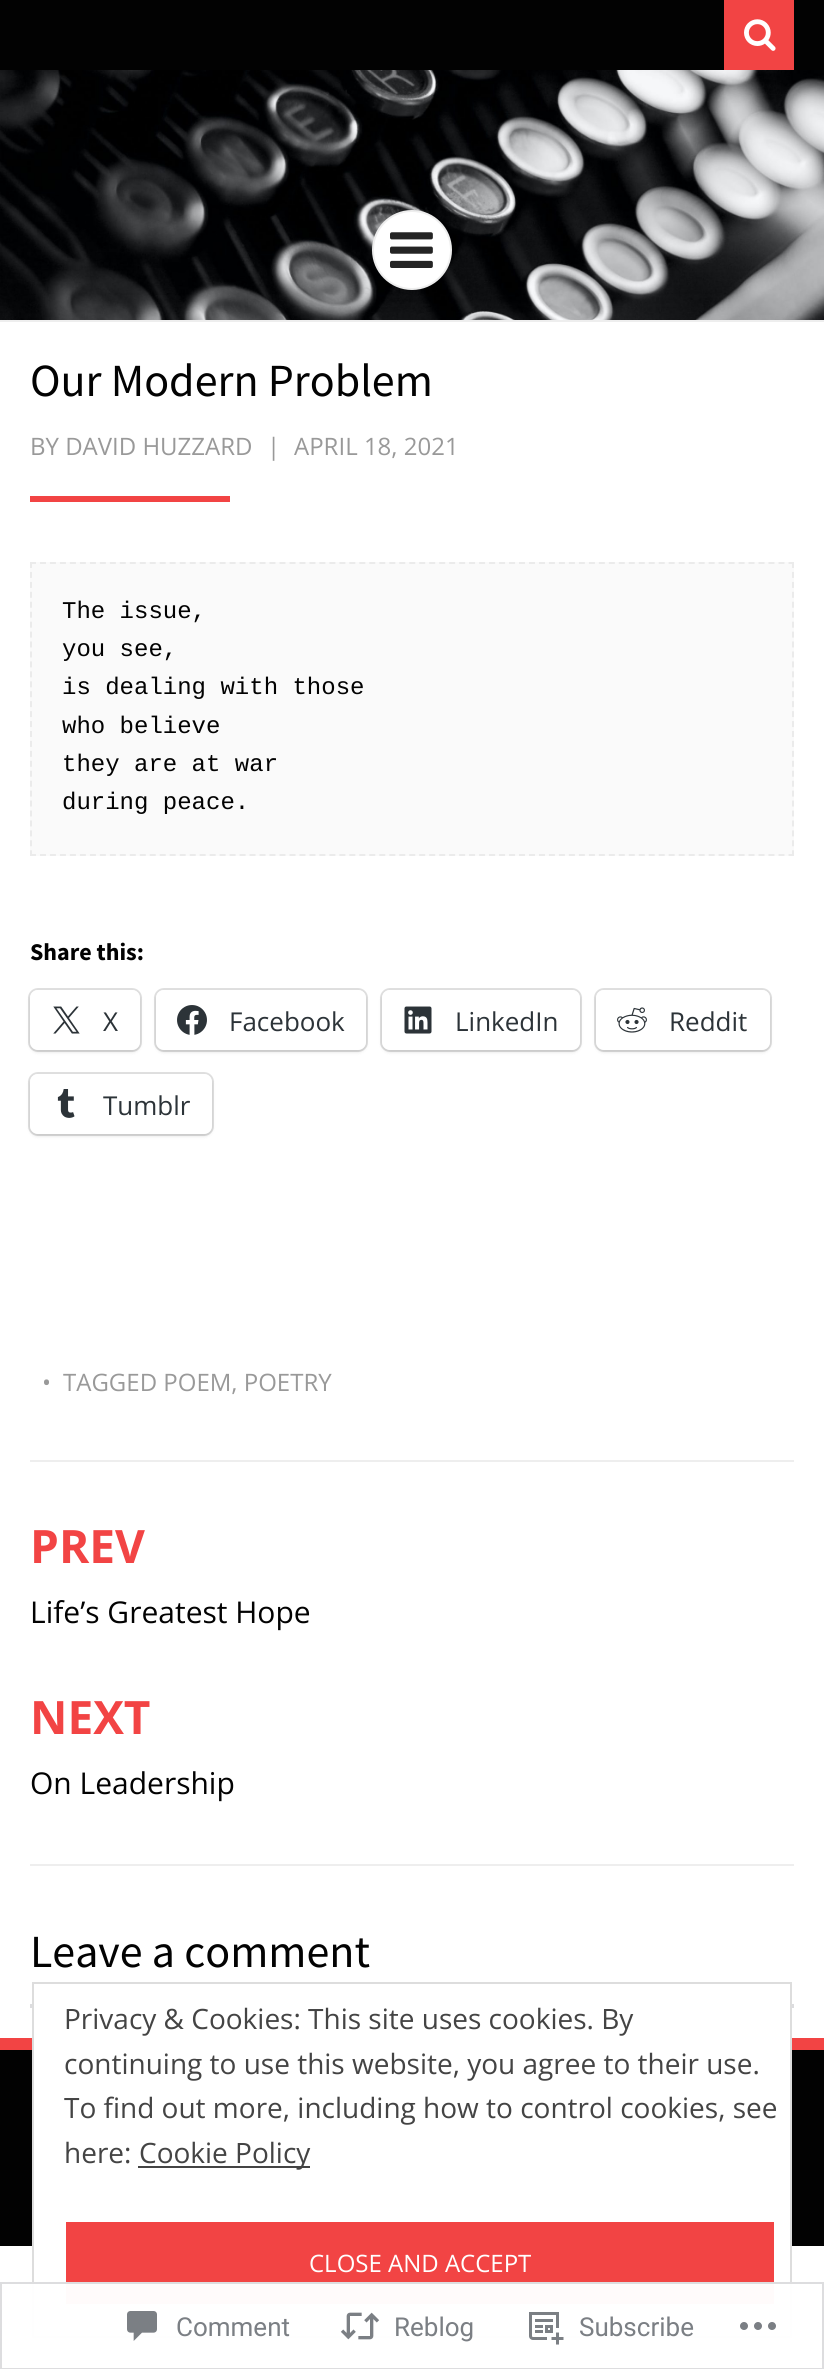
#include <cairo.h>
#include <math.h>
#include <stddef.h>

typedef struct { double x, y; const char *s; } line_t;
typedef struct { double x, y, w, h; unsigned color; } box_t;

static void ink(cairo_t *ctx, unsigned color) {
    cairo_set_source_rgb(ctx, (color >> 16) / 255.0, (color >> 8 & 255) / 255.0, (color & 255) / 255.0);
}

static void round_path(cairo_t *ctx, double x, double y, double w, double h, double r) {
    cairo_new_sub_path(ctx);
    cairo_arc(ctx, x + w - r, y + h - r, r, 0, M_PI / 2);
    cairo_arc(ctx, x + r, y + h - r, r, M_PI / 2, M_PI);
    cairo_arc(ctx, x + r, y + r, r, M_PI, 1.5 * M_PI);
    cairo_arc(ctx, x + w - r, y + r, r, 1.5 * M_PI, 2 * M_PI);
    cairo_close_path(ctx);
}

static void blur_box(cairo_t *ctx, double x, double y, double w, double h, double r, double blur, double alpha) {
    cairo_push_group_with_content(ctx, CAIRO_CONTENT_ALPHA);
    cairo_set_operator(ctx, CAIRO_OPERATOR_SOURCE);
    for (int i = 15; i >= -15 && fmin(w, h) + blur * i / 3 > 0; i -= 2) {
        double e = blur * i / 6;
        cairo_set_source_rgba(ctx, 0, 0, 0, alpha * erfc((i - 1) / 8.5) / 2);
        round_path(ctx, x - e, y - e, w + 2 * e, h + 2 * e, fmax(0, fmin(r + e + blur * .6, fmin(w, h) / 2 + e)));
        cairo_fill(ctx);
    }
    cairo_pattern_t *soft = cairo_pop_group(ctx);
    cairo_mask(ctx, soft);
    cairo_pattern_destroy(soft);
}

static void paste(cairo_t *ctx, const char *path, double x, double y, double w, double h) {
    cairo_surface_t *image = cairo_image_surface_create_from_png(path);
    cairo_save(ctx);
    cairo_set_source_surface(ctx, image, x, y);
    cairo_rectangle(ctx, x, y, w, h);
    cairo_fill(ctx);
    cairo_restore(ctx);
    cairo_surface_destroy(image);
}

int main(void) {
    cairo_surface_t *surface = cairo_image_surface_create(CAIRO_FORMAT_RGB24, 824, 2369);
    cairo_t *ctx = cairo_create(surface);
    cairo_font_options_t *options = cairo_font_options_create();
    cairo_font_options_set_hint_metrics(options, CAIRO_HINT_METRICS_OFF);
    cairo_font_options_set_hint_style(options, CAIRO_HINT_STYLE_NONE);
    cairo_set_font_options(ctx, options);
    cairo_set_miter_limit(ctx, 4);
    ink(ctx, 0xFFFFFF);
    cairo_paint(ctx);
    ink(ctx, 0x020202);
    cairo_rectangle(ctx, 0, 0, 824, 70);
    cairo_fill(ctx);
    ink(ctx, 0xF24444);
    cairo_rectangle(ctx, 724, 0, 70, 70);
    cairo_fill(ctx);
    paste(ctx, "media/1.png", 744, 19, 32, 32);
    paste(ctx, "media/2.png", 0, 70, 824, 250);
    ink(ctx, 0xEEEEEE);
    cairo_rectangle(ctx, 0, 320, 824, 2);
    cairo_fill(ctx);
    ink(ctx, 0xFFFFFF);
    cairo_arc(ctx, 412, 250, 39, 0, 2 * M_PI);
    cairo_fill_preserve(ctx);
    ink(ctx, 0xEEEEEE);
    cairo_stroke(ctx);
    paste(ctx, "media/3.png", 390, 232, 43, 36);
    cairo_select_font_face(ctx, "Source Sans Pro", CAIRO_FONT_SLANT_NORMAL, CAIRO_FONT_WEIGHT_NORMAL);
    cairo_set_font_size(ctx, 46);
    ink(ctx, 0x020202);
    cairo_move_to(ctx, 30, 396);
    cairo_show_text(ctx, "Our Modern Problem");
    cairo_select_font_face(ctx, "Open Sans", CAIRO_FONT_SLANT_NORMAL, CAIRO_FONT_WEIGHT_NORMAL);
    cairo_set_font_size(ctx, 24);
    ink(ctx, 0x999999);
    {
        static const line_t items[] = {
            {30, 455, "BY DAVID HUZZARD"},
            {267, 455, "|"},
            {294, 455, "APRIL 18, 2021"},
        };
        for (size_t i = 0; i < sizeof items / sizeof *items; i++) {
            cairo_move_to(ctx, items[i].x, items[i].y);
            cairo_show_text(ctx, items[i].s);
        }
    }
    ink(ctx, 0xF24444);
    cairo_rectangle(ctx, 30, 496, 200, 6);
    cairo_fill(ctx);
    ink(ctx, 0xFAFAFA);
    cairo_rectangle(ctx, 30, 562, 764, 294);
    cairo_fill(ctx);
    cairo_new_path(ctx);
    cairo_move_to(ctx, 30, 563);
    cairo_line_to(ctx, 794, 563);
    ink(ctx, 0xEBEBEB);
    cairo_set_dash(ctx, (double[]){6, 3.98}, 2, 0);
    cairo_stroke(ctx);
    cairo_new_path(ctx);
    cairo_move_to(ctx, 793, 562);
    cairo_line_to(ctx, 793, 856);
    cairo_set_dash(ctx, (double[]){6, 3.94}, 2, 0);
    cairo_stroke(ctx);
    cairo_new_path(ctx);
    cairo_move_to(ctx, 30, 855);
    cairo_line_to(ctx, 794, 855);
    cairo_set_dash(ctx, (double[]){6, 3.98}, 2, 0);
    cairo_stroke(ctx);
    cairo_new_path(ctx);
    cairo_move_to(ctx, 31, 562);
    cairo_line_to(ctx, 31, 856);
    cairo_set_dash(ctx, (double[]){6, 3.94}, 2, 0);
    cairo_stroke(ctx);
    cairo_select_font_face(ctx, "Liberation Mono", CAIRO_FONT_SLANT_NORMAL, CAIRO_FONT_WEIGHT_NORMAL);
    ink(ctx, 0x020202);
    {
        static const line_t items[] = {
            {62, 618, "The issue,"},
            {62, 656, "you see,"},
            {62, 694, "is dealing with those"},
            {62, 733, "who believe"},
            {62, 771, "they are at war"},
            {62, 809, "during peace."},
        };
        for (size_t i = 0; i < sizeof items / sizeof *items; i++) {
            cairo_move_to(ctx, items[i].x, items[i].y);
            cairo_show_text(ctx, items[i].s);
        }
    }
    cairo_select_font_face(ctx, "Source Sans Pro", CAIRO_FONT_SLANT_NORMAL, CAIRO_FONT_WEIGHT_BOLD);
    cairo_move_to(ctx, 30, 960);
    cairo_show_text(ctx, "Share this:");
    round_path(ctx, 29, 989, 112, 62, 9);
    ink(ctx, 0xE0E0E0);
    cairo_set_dash(ctx, NULL, 0, 0);
    cairo_stroke(ctx);
    ink(ctx, 0x000000);
    blur_box(ctx, 30, 992, 110, 60, 8, 2, 0.12);
    ink(ctx, 0xFFFFFF);
    round_path(ctx, 30, 990, 110, 60, 8);
    cairo_fill(ctx);
    paste(ctx, "media/4.png", 53, 1006, 27, 28);
    cairo_select_font_face(ctx, "Open Sans", CAIRO_FONT_SLANT_NORMAL, CAIRO_FONT_WEIGHT_NORMAL);
    cairo_set_font_size(ctx, 26);
    ink(ctx, 0x2C3338);
    cairo_move_to(ctx, 103, 1031);
    cairo_show_text(ctx, "X");
    round_path(ctx, 155, 989, 212, 62, 9);
    ink(ctx, 0xE0E0E0);
    cairo_stroke(ctx);
    ink(ctx, 0x000000);
    blur_box(ctx, 156, 992, 210, 60, 8, 2, 0.12);
    ink(ctx, 0xFFFFFF);
    round_path(ctx, 156, 990, 210, 60, 8);
    cairo_fill(ctx);
    paste(ctx, "media/5.png", 177, 1005, 30, 30);
    ink(ctx, 0x2C3338);
    cairo_move_to(ctx, 229, 1031);
    cairo_show_text(ctx, "Facebook");
    round_path(ctx, 381, 989, 200, 62, 9);
    ink(ctx, 0xE0E0E0);
    cairo_stroke(ctx);
    ink(ctx, 0x000000);
    blur_box(ctx, 382, 992, 198, 60, 8, 2, 0.12);
    ink(ctx, 0xFFFFFF);
    round_path(ctx, 382, 990, 198, 60, 8);
    cairo_fill(ctx);
    paste(ctx, "media/6.png", 404, 1006, 28, 28);
    ink(ctx, 0x2C3338);
    cairo_move_to(ctx, 455, 1031);
    cairo_show_text(ctx, "LinkedIn");
    round_path(ctx, 595, 989, 176, 62, 9);
    ink(ctx, 0xE0E0E0);
    cairo_stroke(ctx);
    ink(ctx, 0x000000);
    blur_box(ctx, 596, 992, 174, 60, 8, 2, 0.12);
    ink(ctx, 0xFFFFFF);
    round_path(ctx, 596, 990, 174, 60, 8);
    cairo_fill(ctx);
    paste(ctx, "media/7.png", 617, 1007, 30, 26);
    ink(ctx, 0x2C3338);
    cairo_move_to(ctx, 669, 1031);
    cairo_show_text(ctx, "Reddit");
    round_path(ctx, 29, 1073, 184, 62, 9);
    ink(ctx, 0xE0E0E0);
    cairo_stroke(ctx);
    ink(ctx, 0x000000);
    blur_box(ctx, 30, 1076, 182, 60, 8, 2, 0.12);
    ink(ctx, 0xFFFFFF);
    round_path(ctx, 30, 1074, 182, 60, 8);
    cairo_fill(ctx);
    paste(ctx, "media/8.png", 57, 1089, 18, 29);
    ink(ctx, 0x2C3338);
    cairo_move_to(ctx, 103, 1115);
    cairo_show_text(ctx, "Tumblr");
    cairo_set_font_size(ctx, 24);
    ink(ctx, 0x999999);
    cairo_move_to(ctx, 42, 1391);
    cairo_show_text(ctx, "•");
    cairo_move_to(ctx, 63, 1391);
    cairo_show_text(ctx, "TAGGED POEM, POETRY");
    ink(ctx, 0xEEEEEE);
    cairo_rectangle(ctx, 30, 1460, 764, 2);
    cairo_fill(ctx);
    cairo_select_font_face(ctx, "Open Sans", CAIRO_FONT_SLANT_NORMAL, CAIRO_FONT_WEIGHT_BOLD);
    cairo_set_font_size(ctx, 46);
    ink(ctx, 0xF24444);
    cairo_move_to(ctx, 30, 1563);
    cairo_show_text(ctx, "PREV");
    cairo_select_font_face(ctx, "Open Sans", CAIRO_FONT_SLANT_NORMAL, CAIRO_FONT_WEIGHT_NORMAL);
    cairo_set_font_size(ctx, 30);
    ink(ctx, 0x020202);
    cairo_move_to(ctx, 30, 1623);
    cairo_show_text(ctx, "Life’s Greatest Hope");
    cairo_select_font_face(ctx, "Open Sans", CAIRO_FONT_SLANT_NORMAL, CAIRO_FONT_WEIGHT_BOLD);
    cairo_set_font_size(ctx, 46);
    ink(ctx, 0xF24444);
    cairo_move_to(ctx, 30, 1734);
    cairo_show_text(ctx, "NEXT");
    cairo_select_font_face(ctx, "Open Sans", CAIRO_FONT_SLANT_NORMAL, CAIRO_FONT_WEIGHT_NORMAL);
    cairo_set_font_size(ctx, 30);
    ink(ctx, 0x020202);
    cairo_move_to(ctx, 30, 1794);
    cairo_show_text(ctx, "On Leadership");
    ink(ctx, 0xEEEEEE);
    cairo_rectangle(ctx, 30, 1864, 764, 2);
    cairo_fill(ctx);
    cairo_select_font_face(ctx, "Source Sans Pro", CAIRO_FONT_SLANT_NORMAL, CAIRO_FONT_WEIGHT_NORMAL);
    cairo_set_font_size(ctx, 46);
    ink(ctx, 0x020202);
    cairo_move_to(ctx, 30, 1967);
    cairo_show_text(ctx, "Leave a comment");
    {
        static const box_t items[] = {
            {30, 2004, 764, 4, 0xDCDCDE},
            {0, 2050, 824, 196, 0x020202},
            {0, 2038, 824, 12, 0xF24444},
            {34, 2004, 756, 242, 0xFFFFFF},
        };
        for (size_t i = 0; i < sizeof items / sizeof *items; i++) {
            ink(ctx, items[i].color);
            cairo_rectangle(ctx, items[i].x, items[i].y, items[i].w, items[i].h);
            cairo_fill(ctx);
        }
    }
    cairo_rectangle(ctx, 33, 1983, 758, 354);
    ink(ctx, 0xDDDDDD);
    cairo_stroke(ctx);
    cairo_select_font_face(ctx, "Open Sans", CAIRO_FONT_SLANT_NORMAL, CAIRO_FONT_WEIGHT_NORMAL);
    cairo_set_font_size(ctx, 28);
    ink(ctx, 0x444444);
    {
        static const line_t items[] = {
            {64, 2029, "Privacy & Cookies: This site uses cookies. By"},
            {64, 2074, "continuing to use this website, you agree to their use."},
            {64, 2118, "To find out more, including how to control cookies, see"},
            {64, 2163, "here:"},
        };
        for (size_t i = 0; i < sizeof items / sizeof *items; i++) {
            cairo_move_to(ctx, items[i].x, items[i].y);
            cairo_show_text(ctx, items[i].s);
        }
    }
    cairo_rectangle(ctx, 138, 2166, 172, 2);
    cairo_fill(ctx);
    cairo_move_to(ctx, 139, 2163);
    cairo_show_text(ctx, "Cookie Policy");
    ink(ctx, 0xF24444);
    cairo_rectangle(ctx, 66, 2222, 708, 82);
    cairo_fill(ctx);
    cairo_set_font_size(ctx, 24);
    ink(ctx, 0xFFFFFF);
    cairo_move_to(ctx, 309, 2272);
    cairo_show_text(ctx, "CLOSE AND ACCEPT");
    cairo_set_source_rgba(ctx, 1, 1, 1, 0.98);
    cairo_rectangle(ctx, 32, 2282, 760, 56);
    cairo_fill(ctx);
    cairo_rectangle(ctx, 1, 2283, 822, 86);
    cairo_set_source_rgba(ctx, 0.863, 0.863, 0.871, 0.98);
    cairo_stroke(ctx);
    paste(ctx, "media/9.png", 127, 2311, 30, 30);
    cairo_select_font_face(ctx, "Roboto", CAIRO_FONT_SLANT_NORMAL, CAIRO_FONT_WEIGHT_NORMAL);
    cairo_set_font_size(ctx, 26);
    ink(ctx, 0x7B7F84);
    cairo_move_to(ctx, 176, 2336);
    cairo_show_text(ctx, "Comment");
    paste(ctx, "media/10.png", 340, 2312, 40, 28);
    cairo_move_to(ctx, 394, 2336);
    cairo_show_text(ctx, "Reblog");
    paste(ctx, "media/11.png", 529, 2312, 35, 33);
    cairo_move_to(ctx, 579, 2336);
    cairo_show_text(ctx, "Subscribe");
    paste(ctx, "media/12.png", 740, 2322, 36, 8);
    cairo_surface_write_to_png(surface, "image.png");
    cairo_font_options_destroy(options);
    cairo_destroy(ctx);
    cairo_surface_destroy(surface);
    return 0;
}
